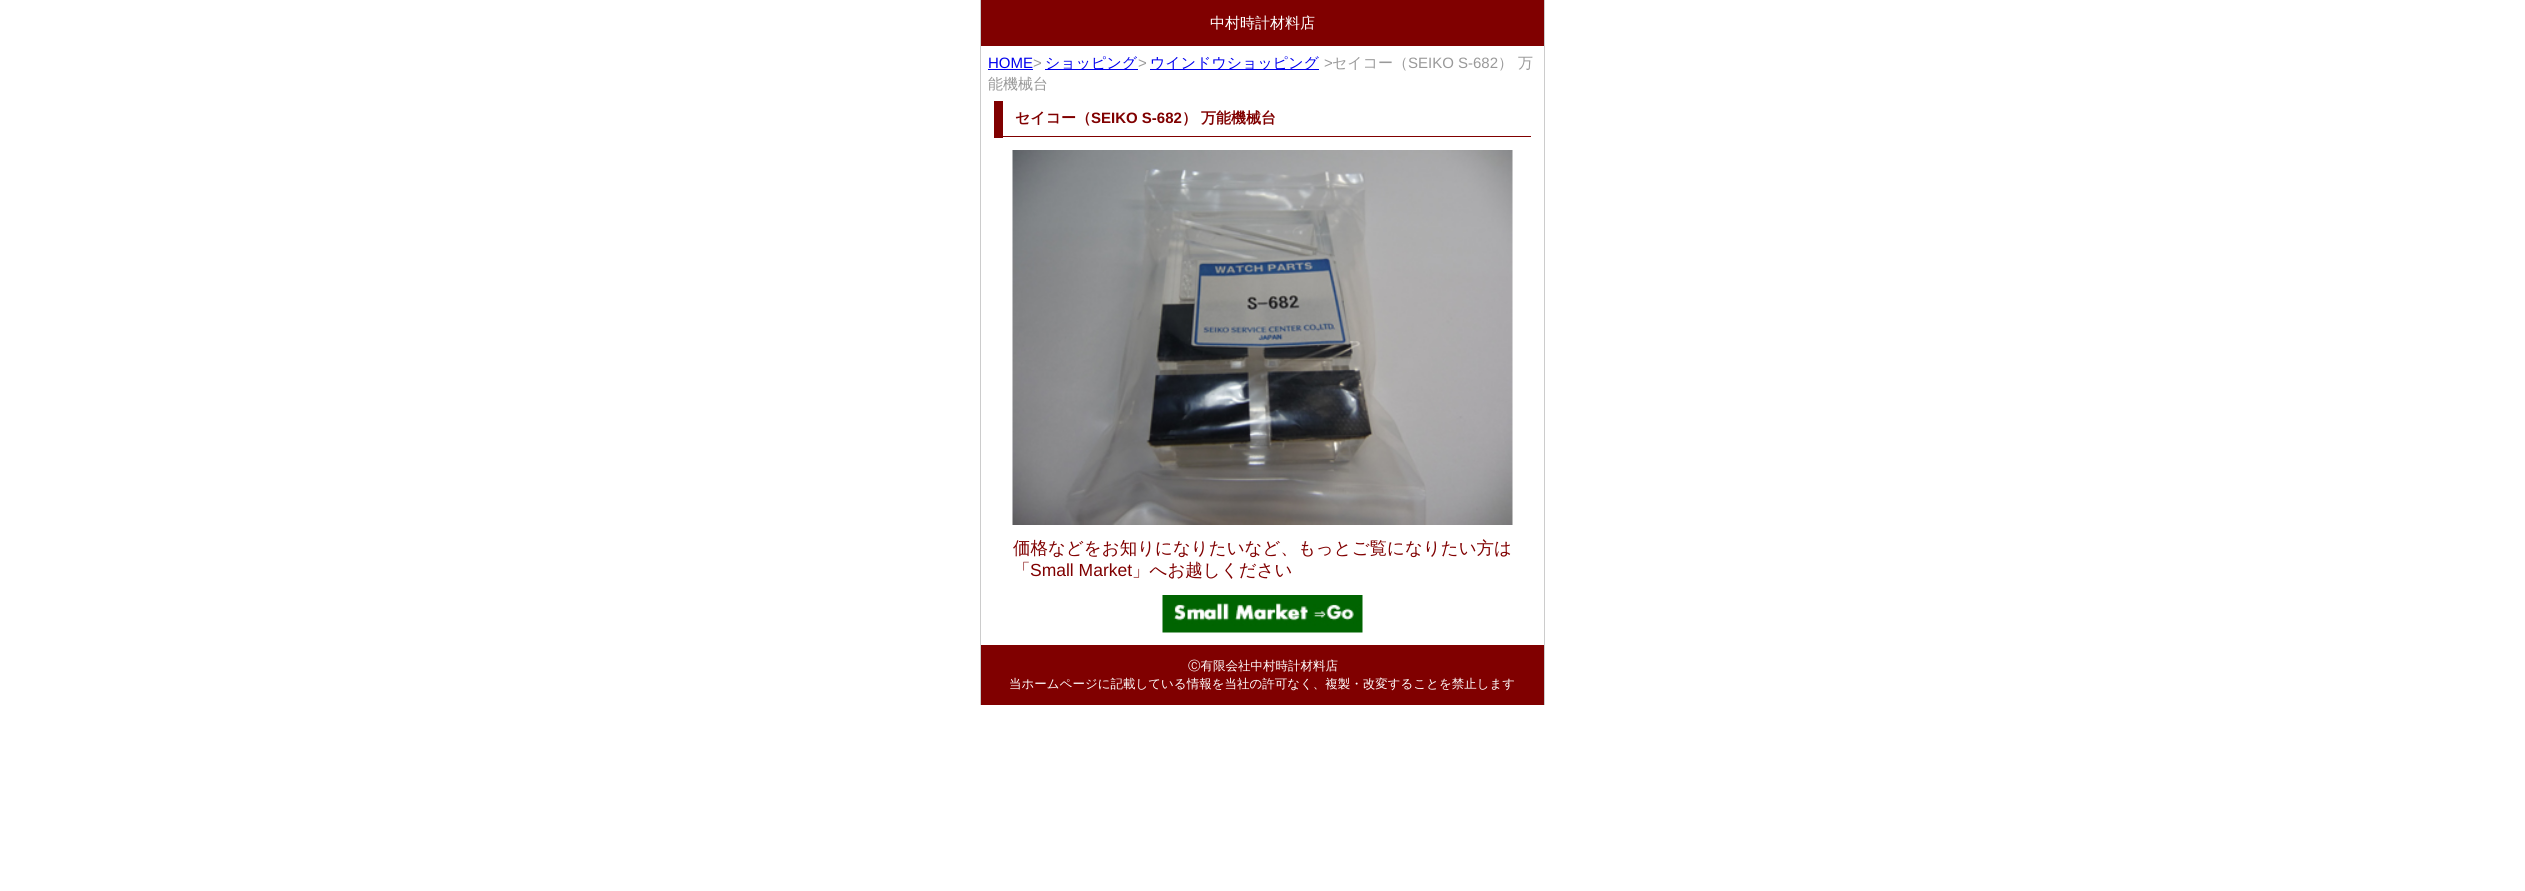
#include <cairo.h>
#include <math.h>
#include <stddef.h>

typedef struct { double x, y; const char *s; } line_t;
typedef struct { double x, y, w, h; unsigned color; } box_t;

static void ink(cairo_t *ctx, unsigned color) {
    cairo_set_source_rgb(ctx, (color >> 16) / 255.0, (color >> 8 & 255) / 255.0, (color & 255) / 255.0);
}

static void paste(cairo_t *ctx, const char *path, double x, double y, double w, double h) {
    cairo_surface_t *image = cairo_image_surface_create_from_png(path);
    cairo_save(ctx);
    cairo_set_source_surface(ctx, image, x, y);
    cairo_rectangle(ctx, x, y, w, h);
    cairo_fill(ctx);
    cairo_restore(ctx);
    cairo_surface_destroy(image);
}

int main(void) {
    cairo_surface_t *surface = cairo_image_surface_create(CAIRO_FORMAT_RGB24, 2525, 891);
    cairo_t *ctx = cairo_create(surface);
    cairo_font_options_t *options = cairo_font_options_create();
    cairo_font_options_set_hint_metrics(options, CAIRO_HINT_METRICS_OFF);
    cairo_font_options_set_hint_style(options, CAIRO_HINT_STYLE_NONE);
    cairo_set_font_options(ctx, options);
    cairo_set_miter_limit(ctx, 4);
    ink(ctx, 0xFFFFFF);
    cairo_paint(ctx);
    {
        static const box_t items[] = {
            {1544, 0, 1, 705, 0xCCCCCC},
            {980, 0, 1, 705, 0xCCCCCC},
            {981, 0, 563, 46, 0x800000},
        };
        for (size_t i = 0; i < sizeof items / sizeof *items; i++) {
            ink(ctx, items[i].color);
            cairo_rectangle(ctx, items[i].x, items[i].y, items[i].w, items[i].h);
            cairo_fill(ctx);
        }
    }
    cairo_select_font_face(ctx, "WenQuanYi Zen Hei Medium", CAIRO_FONT_SLANT_NORMAL, CAIRO_FONT_WEIGHT_NORMAL);
    cairo_set_font_size(ctx, 15);
    ink(ctx, 0xFFFFFF);
    cairo_move_to(ctx, 1210, 28);
    cairo_show_text(ctx, "中村時計材料店");
    cairo_select_font_face(ctx, "Liberation Sans", CAIRO_FONT_SLANT_NORMAL, CAIRO_FONT_WEIGHT_NORMAL);
    ink(ctx, 0x0000EE);
    cairo_move_to(ctx, 988, 68);
    cairo_show_text(ctx, "HOME");
    cairo_rectangle(ctx, 988, 69, 45, 1);
    cairo_fill(ctx);
    ink(ctx, 0x999999);
    cairo_move_to(ctx, 1033, 68);
    cairo_show_text(ctx, ">");
    ink(ctx, 0x0000EE);
    cairo_rectangle(ctx, 1045, 69, 93, 1);
    cairo_fill(ctx);
    cairo_select_font_face(ctx, "WenQuanYi Zen Hei Medium", CAIRO_FONT_SLANT_NORMAL, CAIRO_FONT_WEIGHT_NORMAL);
    cairo_move_to(ctx, 1045, 68);
    cairo_show_text(ctx, "ショッピング");
    cairo_select_font_face(ctx, "Liberation Sans", CAIRO_FONT_SLANT_NORMAL, CAIRO_FONT_WEIGHT_NORMAL);
    ink(ctx, 0x999999);
    cairo_move_to(ctx, 1138, 68);
    cairo_show_text(ctx, ">");
    ink(ctx, 0x0000EE);
    cairo_rectangle(ctx, 1150, 69, 169, 1);
    cairo_fill(ctx);
    cairo_select_font_face(ctx, "WenQuanYi Zen Hei Medium", CAIRO_FONT_SLANT_NORMAL, CAIRO_FONT_WEIGHT_NORMAL);
    cairo_move_to(ctx, 1150, 68);
    cairo_show_text(ctx, "ウインドウショッピング");
    cairo_select_font_face(ctx, "Liberation Sans", CAIRO_FONT_SLANT_NORMAL, CAIRO_FONT_WEIGHT_NORMAL);
    ink(ctx, 0x999999);
    cairo_move_to(ctx, 1324, 68);
    cairo_show_text(ctx, ">");
    cairo_select_font_face(ctx, "WenQuanYi Zen Hei Medium", CAIRO_FONT_SLANT_NORMAL, CAIRO_FONT_WEIGHT_NORMAL);
    cairo_move_to(ctx, 1332, 68);
    cairo_show_text(ctx, "セイコー（");
    cairo_select_font_face(ctx, "Liberation Sans", CAIRO_FONT_SLANT_NORMAL, CAIRO_FONT_WEIGHT_NORMAL);
    cairo_move_to(ctx, 1408, 68);
    cairo_show_text(ctx, "SEIKO S-682");
    cairo_select_font_face(ctx, "WenQuanYi Zen Hei Medium", CAIRO_FONT_SLANT_NORMAL, CAIRO_FONT_WEIGHT_NORMAL);
    {
        static const line_t items[] = {
            {1498, 68, "）"},
            {1518, 68, "万"},
            {988, 89, "能機械台"},
        };
        for (size_t i = 0; i < sizeof items / sizeof *items; i++) {
            cairo_move_to(ctx, items[i].x, items[i].y);
            cairo_show_text(ctx, items[i].s);
        }
    }
    ink(ctx, 0x800000);
    cairo_rectangle(ctx, 1003, 136, 528, 1);
    cairo_fill(ctx);
    cairo_rectangle(ctx, 994, 101, 9, 37);
    cairo_fill(ctx);
    cairo_select_font_face(ctx, "WenQuanYi Zen Hei", CAIRO_FONT_SLANT_NORMAL, CAIRO_FONT_WEIGHT_BOLD);
    cairo_move_to(ctx, 1015, 123);
    cairo_show_text(ctx, "セイコー（");
    cairo_select_font_face(ctx, "Liberation Sans", CAIRO_FONT_SLANT_NORMAL, CAIRO_FONT_WEIGHT_BOLD);
    cairo_move_to(ctx, 1091, 123);
    cairo_show_text(ctx, "SEIKO S-682");
    cairo_select_font_face(ctx, "WenQuanYi Zen Hei", CAIRO_FONT_SLANT_NORMAL, CAIRO_FONT_WEIGHT_BOLD);
    cairo_move_to(ctx, 1182, 123);
    cairo_show_text(ctx, "）");
    cairo_move_to(ctx, 1201, 123);
    cairo_show_text(ctx, "万能機械台");
    paste(ctx, "media/1.png", 1012, 150, 501, 375);
    cairo_select_font_face(ctx, "WenQuanYi Zen Hei Medium", CAIRO_FONT_SLANT_NORMAL, CAIRO_FONT_WEIGHT_NORMAL);
    cairo_set_font_size(ctx, 17.5);
    cairo_move_to(ctx, 1013, 554);
    cairo_show_text(ctx, "価格などをお知りになりたいなど、もっとご覧になりたい方は");
    cairo_move_to(ctx, 1013, 576);
    cairo_show_text(ctx, "「");
    cairo_select_font_face(ctx, "Liberation Sans", CAIRO_FONT_SLANT_NORMAL, CAIRO_FONT_WEIGHT_NORMAL);
    cairo_move_to(ctx, 1030, 576);
    cairo_show_text(ctx, "Small Market");
    cairo_select_font_face(ctx, "WenQuanYi Zen Hei Medium", CAIRO_FONT_SLANT_NORMAL, CAIRO_FONT_WEIGHT_NORMAL);
    cairo_move_to(ctx, 1132, 576);
    cairo_show_text(ctx, "」へお越しください");
    paste(ctx, "media/2.png", 1162, 595, 201, 38);
    cairo_rectangle(ctx, 981, 645, 563, 60);
    cairo_fill(ctx);
    cairo_set_font_size(ctx, 12.5);
    ink(ctx, 0xFFFFFF);
    cairo_move_to(ctx, 1188, 670);
    cairo_show_text(ctx, "Ⓒ有限会社中村時計材料店");
    cairo_move_to(ctx, 1009, 688);
    cairo_show_text(ctx, "当ホームページに記載している情報を当社の許可なく、複製・改変することを禁止します");
    cairo_surface_write_to_png(surface, "image.png");
    cairo_font_options_destroy(options);
    cairo_destroy(ctx);
    cairo_surface_destroy(surface);
    return 0;
}
